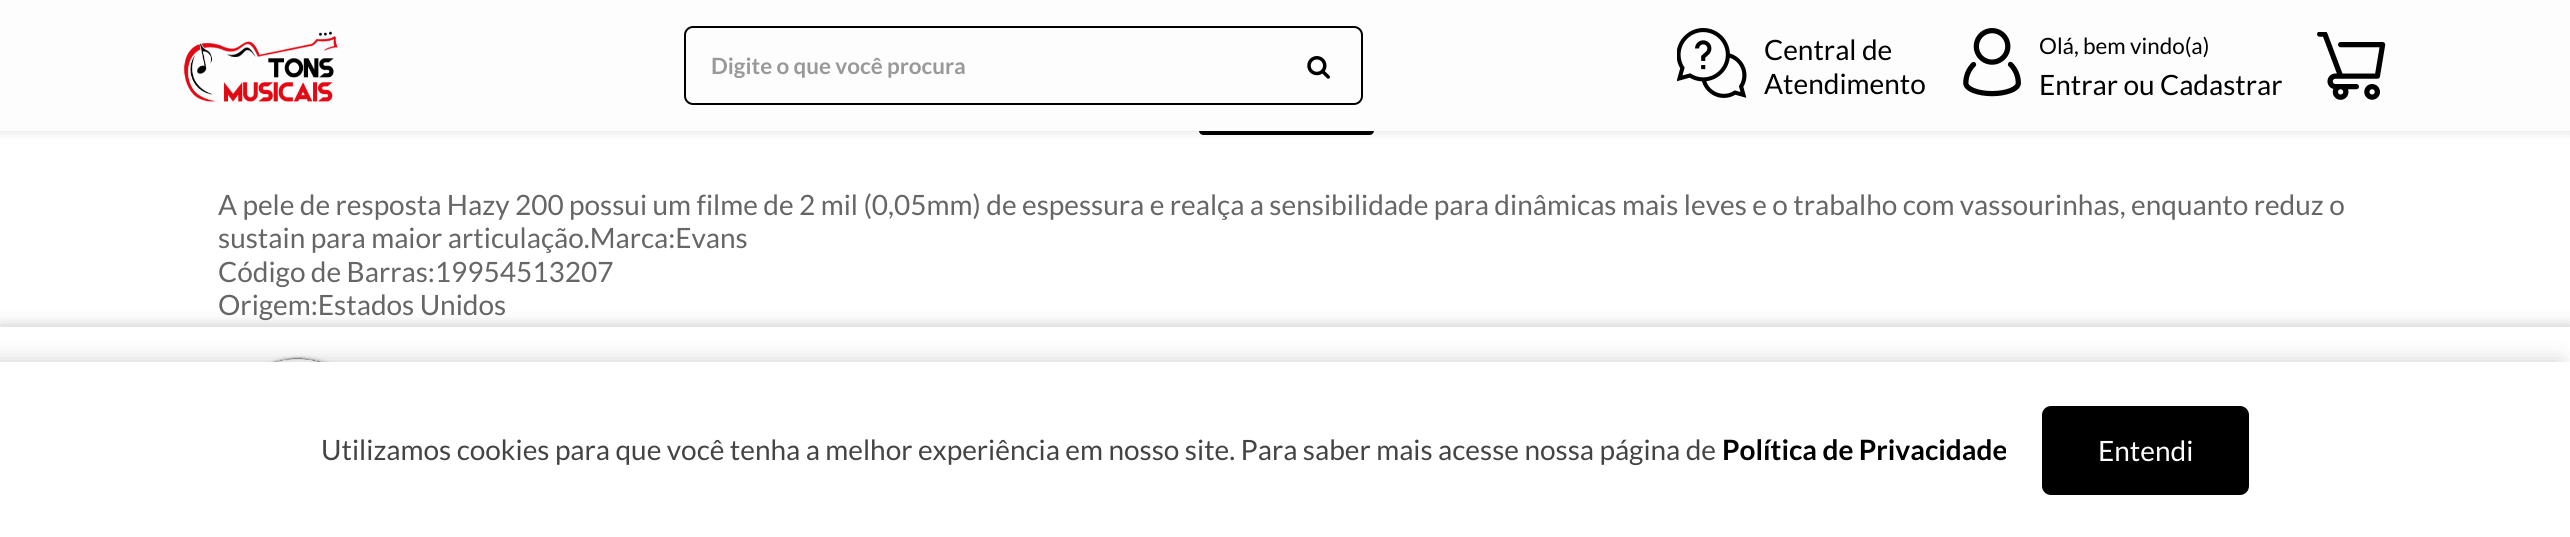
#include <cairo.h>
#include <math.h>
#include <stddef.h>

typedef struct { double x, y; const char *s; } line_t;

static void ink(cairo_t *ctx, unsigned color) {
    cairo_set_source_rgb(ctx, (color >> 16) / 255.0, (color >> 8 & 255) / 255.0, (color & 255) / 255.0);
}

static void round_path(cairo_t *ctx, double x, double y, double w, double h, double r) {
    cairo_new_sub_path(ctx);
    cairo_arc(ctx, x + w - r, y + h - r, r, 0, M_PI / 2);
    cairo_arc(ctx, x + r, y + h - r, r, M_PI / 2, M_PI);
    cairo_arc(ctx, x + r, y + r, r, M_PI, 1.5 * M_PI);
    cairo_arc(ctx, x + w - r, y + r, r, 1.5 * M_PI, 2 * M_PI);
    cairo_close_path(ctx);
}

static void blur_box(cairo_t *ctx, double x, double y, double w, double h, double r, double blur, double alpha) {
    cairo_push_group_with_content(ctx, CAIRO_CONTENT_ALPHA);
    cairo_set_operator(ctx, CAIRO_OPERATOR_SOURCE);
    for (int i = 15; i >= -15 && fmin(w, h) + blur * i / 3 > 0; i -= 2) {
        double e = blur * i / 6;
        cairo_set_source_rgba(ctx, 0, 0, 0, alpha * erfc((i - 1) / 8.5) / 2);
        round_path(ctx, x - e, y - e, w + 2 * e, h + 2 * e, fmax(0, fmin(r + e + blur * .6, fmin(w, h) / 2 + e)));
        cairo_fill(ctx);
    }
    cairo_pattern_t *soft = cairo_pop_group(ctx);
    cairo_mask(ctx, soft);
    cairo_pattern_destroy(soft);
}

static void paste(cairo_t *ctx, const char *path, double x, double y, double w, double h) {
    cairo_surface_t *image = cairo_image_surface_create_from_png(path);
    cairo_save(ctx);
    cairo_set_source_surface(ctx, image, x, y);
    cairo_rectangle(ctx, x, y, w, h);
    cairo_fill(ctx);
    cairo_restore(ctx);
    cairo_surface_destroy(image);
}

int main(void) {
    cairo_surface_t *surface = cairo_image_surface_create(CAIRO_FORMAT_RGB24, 2570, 537);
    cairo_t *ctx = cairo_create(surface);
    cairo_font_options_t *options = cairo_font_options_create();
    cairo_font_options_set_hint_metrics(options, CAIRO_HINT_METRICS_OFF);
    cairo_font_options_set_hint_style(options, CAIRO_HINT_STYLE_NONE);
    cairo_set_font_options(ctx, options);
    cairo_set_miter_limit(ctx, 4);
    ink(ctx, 0xFFFFFF);
    cairo_paint(ctx);
    ink(ctx, 0x000000);
    round_path(ctx, 1199, 126, 175, 9, 4.5);
    cairo_fill(ctx);
    ink(ctx, 0x000000);
    blur_box(ctx, 0, 2, 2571, 131, 0, 4.5, 0.1);
    ink(ctx, 0xFDFDFD);
    cairo_rectangle(ctx, 0, 0, 2570, 131);
    cairo_fill(ctx);
    paste(ctx, "media/1.png", 184, 31, 154, 71);
    round_path(ctx, 685, 27, 677, 77, 8);
    ink(ctx, 0x000000);
    cairo_stroke(ctx);
    cairo_select_font_face(ctx, "Lato", CAIRO_FONT_SLANT_NORMAL, CAIRO_FONT_WEIGHT_BOLD);
    cairo_set_font_size(ctx, 22.4);
    ink(ctx, 0x999999);
    cairo_move_to(ctx, 711, 74);
    cairo_show_text(ctx, "Digite o que você procura");
    paste(ctx, "media/2.png", 1307, 56, 23, 23);
    paste(ctx, "media/3.png", 1677, 28, 70, 70);
    cairo_select_font_face(ctx, "Lato", CAIRO_FONT_SLANT_NORMAL, CAIRO_FONT_WEIGHT_NORMAL);
    cairo_set_font_size(ctx, 28);
    ink(ctx, 0x000000);
    cairo_move_to(ctx, 1764, 60);
    cairo_show_text(ctx, "Central de");
    cairo_move_to(ctx, 1764, 94);
    cairo_show_text(ctx, "Atendimento");
    paste(ctx, "media/4.png", 1963, 28, 58, 69);
    cairo_set_font_size(ctx, 22.4);
    cairo_move_to(ctx, 2039, 54);
    cairo_show_text(ctx, "Olá, bem vindo(a)");
    cairo_set_font_size(ctx, 28);
    cairo_move_to(ctx, 2039, 95);
    cairo_show_text(ctx, "Entrar ou Cadastrar");
    paste(ctx, "media/5.png", 2317, 32, 69, 68);
    ink(ctx, 0x666666);
    {
        static const line_t items[] = {
            {218, 215, "A pele de resposta Hazy 200 possui um filme de 2 mil (0,05mm) de espessura e realça a sensibilidade para dinâmicas mais leves e o trabalho com vassourinhas, enquanto reduz o"},
            {218, 248, "sustain para maior articulação.Marca:Evans"},
            {218, 282, "Código de Barras:19954513207"},
            {218, 315, "Origem:Estados Unidos"},
        };
        for (size_t i = 0; i < sizeof items / sizeof *items; i++) {
            cairo_move_to(ctx, items[i].x, items[i].y);
            cairo_show_text(ctx, items[i].s);
        }
    }
    ink(ctx, 0x000000);
    blur_box(ctx, 0, 331, 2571, 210, 0, 9, 0.4);
    ink(ctx, 0xFFFFFF);
    cairo_rectangle(ctx, 0, 327, 2570, 35);
    cairo_fill(ctx);
    paste(ctx, "media/6.png", 221, 355, 154, 7);
    ink(ctx, 0x000000);
    blur_box(ctx, -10, 362, 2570, 175, 0, 10.5, 0.2);
    ink(ctx, 0xFFFFFF);
    cairo_rectangle(ctx, 0, 362, 2570, 175);
    cairo_fill(ctx);
    ink(ctx, 0x444444);
    cairo_move_to(ctx, 321, 460);
    cairo_show_text(ctx, "Utilizamos cookies para que você tenha a melhor experiência em nosso site. Para saber mais acesse nossa página de");
    cairo_select_font_face(ctx, "Lato", CAIRO_FONT_SLANT_NORMAL, CAIRO_FONT_WEIGHT_BOLD);
    ink(ctx, 0x000000);
    cairo_move_to(ctx, 1722, 460);
    cairo_show_text(ctx, "Política de Privacidade");
    round_path(ctx, 2042, 406, 207, 89, 9);
    cairo_fill(ctx);
    cairo_select_font_face(ctx, "Lato", CAIRO_FONT_SLANT_NORMAL, CAIRO_FONT_WEIGHT_NORMAL);
    ink(ctx, 0xFFFFFF);
    cairo_move_to(ctx, 2098, 461);
    cairo_show_text(ctx, "Entendi");
    cairo_surface_write_to_png(surface, "image.png");
    cairo_font_options_destroy(options);
    cairo_destroy(ctx);
    cairo_surface_destroy(surface);
    return 0;
}
